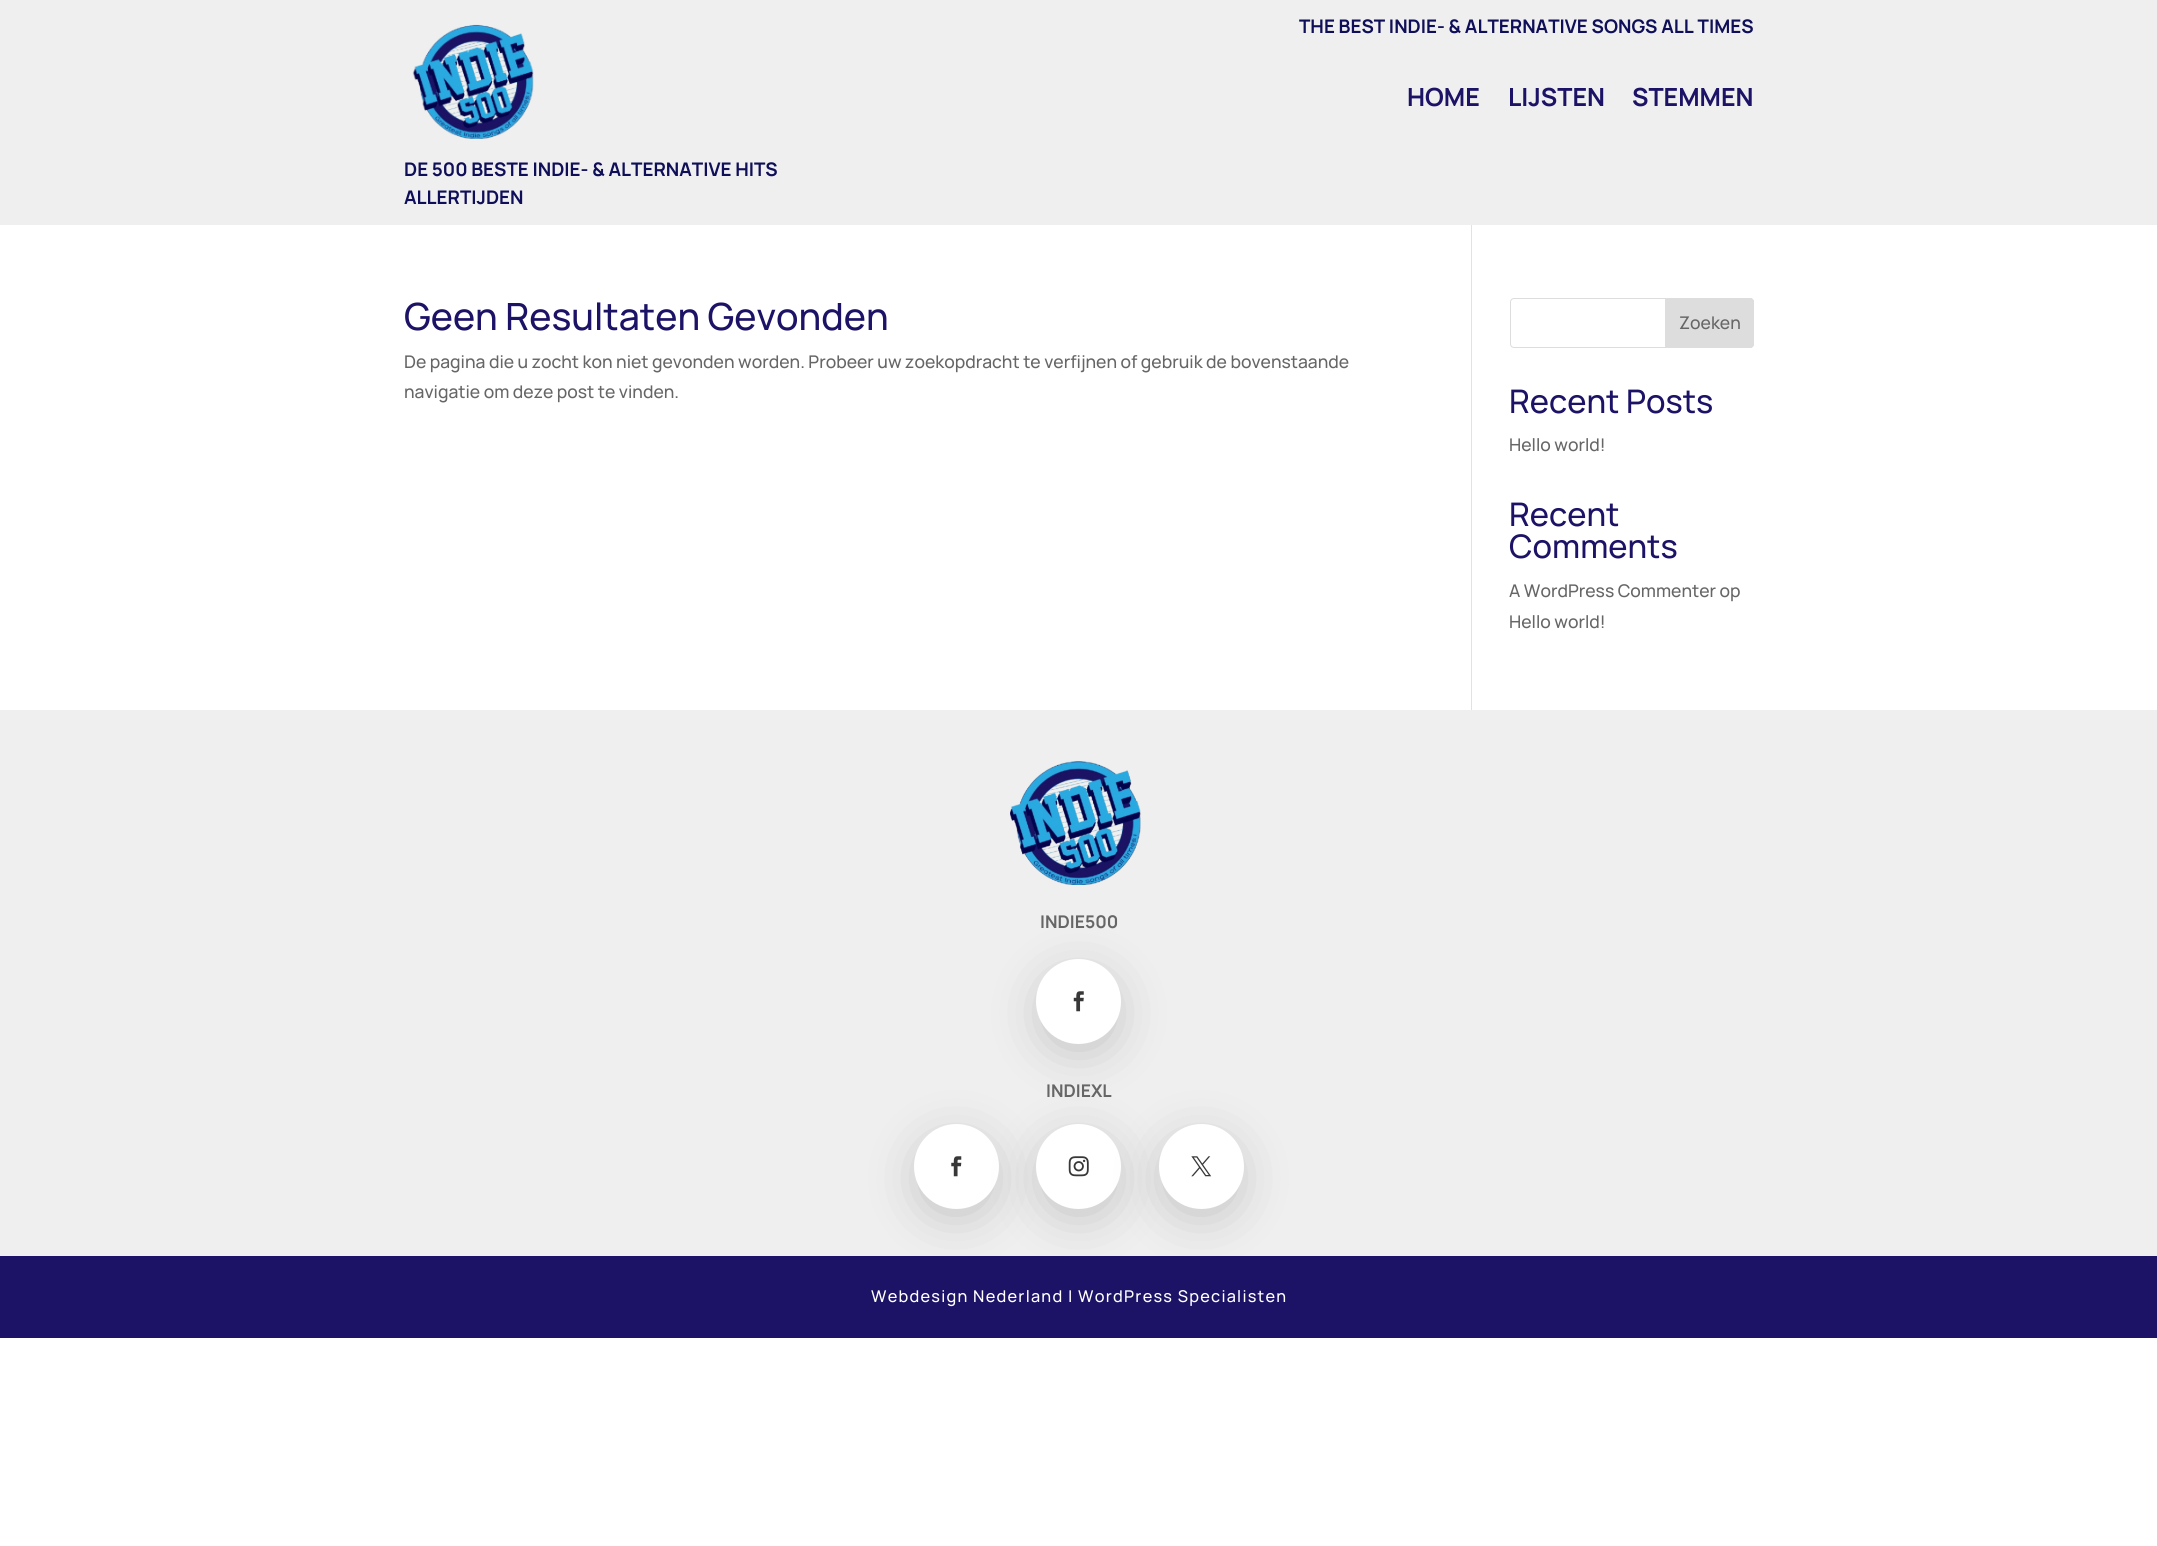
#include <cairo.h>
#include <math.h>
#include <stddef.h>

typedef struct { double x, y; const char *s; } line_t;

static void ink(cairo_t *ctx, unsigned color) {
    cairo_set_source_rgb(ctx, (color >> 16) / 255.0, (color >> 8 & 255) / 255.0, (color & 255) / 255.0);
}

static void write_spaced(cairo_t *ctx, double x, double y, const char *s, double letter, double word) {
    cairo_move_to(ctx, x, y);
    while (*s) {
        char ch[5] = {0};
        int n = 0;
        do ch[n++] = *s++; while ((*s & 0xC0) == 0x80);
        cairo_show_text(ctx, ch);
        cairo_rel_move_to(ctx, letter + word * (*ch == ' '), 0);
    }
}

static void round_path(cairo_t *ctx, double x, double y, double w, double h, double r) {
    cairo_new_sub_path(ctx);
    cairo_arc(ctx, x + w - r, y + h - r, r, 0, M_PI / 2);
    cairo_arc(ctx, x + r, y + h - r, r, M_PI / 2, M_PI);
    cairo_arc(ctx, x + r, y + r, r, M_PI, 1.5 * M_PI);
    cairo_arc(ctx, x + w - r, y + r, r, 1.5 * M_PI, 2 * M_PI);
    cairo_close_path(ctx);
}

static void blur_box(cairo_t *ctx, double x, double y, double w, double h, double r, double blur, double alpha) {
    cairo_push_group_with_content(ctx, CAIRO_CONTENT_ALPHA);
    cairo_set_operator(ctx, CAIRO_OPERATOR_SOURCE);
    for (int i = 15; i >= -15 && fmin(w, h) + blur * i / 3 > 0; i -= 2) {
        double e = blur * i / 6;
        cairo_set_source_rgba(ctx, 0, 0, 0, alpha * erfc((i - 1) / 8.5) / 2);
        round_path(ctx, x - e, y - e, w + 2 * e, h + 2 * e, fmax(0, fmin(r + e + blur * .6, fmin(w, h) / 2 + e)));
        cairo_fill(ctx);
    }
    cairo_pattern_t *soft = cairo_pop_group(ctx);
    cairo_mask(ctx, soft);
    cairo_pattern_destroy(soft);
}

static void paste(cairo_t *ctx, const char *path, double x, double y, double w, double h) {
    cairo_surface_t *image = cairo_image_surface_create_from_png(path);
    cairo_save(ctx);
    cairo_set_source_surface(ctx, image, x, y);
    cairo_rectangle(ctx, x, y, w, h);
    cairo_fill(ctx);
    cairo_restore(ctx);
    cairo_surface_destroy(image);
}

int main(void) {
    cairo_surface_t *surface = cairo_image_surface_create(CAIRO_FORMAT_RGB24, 2157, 1546);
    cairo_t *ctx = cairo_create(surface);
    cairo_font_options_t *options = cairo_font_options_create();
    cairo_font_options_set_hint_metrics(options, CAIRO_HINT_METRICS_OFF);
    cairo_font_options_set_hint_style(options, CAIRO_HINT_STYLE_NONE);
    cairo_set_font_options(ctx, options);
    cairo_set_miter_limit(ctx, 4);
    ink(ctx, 0xFFFFFF);
    cairo_paint(ctx);
    ink(ctx, 0xEFEFEF);
    cairo_rectangle(ctx, 0, 0, 2157, 225);
    cairo_fill(ctx);
    cairo_select_font_face(ctx, "Manrope", CAIRO_FONT_SLANT_NORMAL, CAIRO_FONT_WEIGHT_BOLD);
    cairo_set_font_size(ctx, 18.75);
    ink(ctx, 0x0F0E58);
    cairo_move_to(ctx, 1299, 33);
    cairo_show_text(ctx, "THE BEST INDIE- & ALTERNATIVE SONGS ALL TIMES");
    cairo_set_font_size(ctx, 25);
    ink(ctx, 0x1C1367);
    {
        static const line_t items[] = {
            {1407, 106, "HOME"},
            {1508, 106, "LIJSTEN"},
            {1632, 106, "STEMMEN"},
        };
        for (size_t i = 0; i < sizeof items / sizeof *items; i++) {
            cairo_move_to(ctx, items[i].x, items[i].y);
            cairo_show_text(ctx, items[i].s);
        }
    }
    paste(ctx, "media/1.png", 412, 24, 122, 115);
    cairo_set_font_size(ctx, 18.75);
    ink(ctx, 0x0F0E58);
    cairo_move_to(ctx, 404, 176);
    cairo_show_text(ctx, "DE 500 BESTE INDIE- & ALTERNATIVE HITS");
    cairo_move_to(ctx, 404, 204);
    cairo_show_text(ctx, "ALLERTIJDEN");
    ink(ctx, 0xE2E2E2);
    cairo_rectangle(ctx, 1471, 225, 1, 485);
    cairo_fill(ctx);
    cairo_select_font_face(ctx, "Manrope Medium", CAIRO_FONT_SLANT_NORMAL, CAIRO_FONT_WEIGHT_NORMAL);
    cairo_set_font_size(ctx, 37.5);
    ink(ctx, 0x1C1367);
    cairo_move_to(ctx, 404, 330);
    cairo_show_text(ctx, "Geen Resultaten Gevonden");
    cairo_set_font_size(ctx, 17.5);
    ink(ctx, 0x666666);
    cairo_move_to(ctx, 404, 368);
    cairo_show_text(ctx, "De pagina die u zocht kon niet gevonden worden. Probeer uw zoekopdracht te verfijnen of gebruik de bovenstaande");
    cairo_move_to(ctx, 404, 398);
    cairo_show_text(ctx, "navigatie om deze post te vinden.");
    round_path(ctx, 1510.5, 298.5, 243, 49, 3.5);
    ink(ctx, 0xDDDDDD);
    cairo_set_line_width(ctx, 1);
    cairo_stroke(ctx);
    cairo_new_path(ctx);
    cairo_move_to(ctx, 1665.5, 298.5);
    cairo_line_to(ctx, 1750, 298.5);
    cairo_curve_to(ctx, 1752, 298.5, 1753.5, 300, 1753.5, 302);
    cairo_line_to(ctx, 1753.5, 344);
    cairo_curve_to(ctx, 1753.5, 346, 1752, 347.5, 1750, 347.5);
    cairo_line_to(ctx, 1665.5, 347.5);
    cairo_close_path(ctx);
    cairo_fill_preserve(ctx);
    cairo_stroke(ctx);
    ink(ctx, 0x666666);
    cairo_move_to(ctx, 1679, 329);
    cairo_show_text(ctx, "Zoeken");
    cairo_set_font_size(ctx, 32.5);
    ink(ctx, 0x1C1367);
    cairo_move_to(ctx, 1509, 413);
    cairo_show_text(ctx, "Recent Posts");
    cairo_set_font_size(ctx, 17.5);
    ink(ctx, 0x666666);
    cairo_move_to(ctx, 1509, 451);
    cairo_show_text(ctx, "Hello world!");
    cairo_set_font_size(ctx, 32.5);
    ink(ctx, 0x1C1367);
    cairo_move_to(ctx, 1509, 526);
    cairo_show_text(ctx, "Recent");
    cairo_move_to(ctx, 1509, 558);
    cairo_show_text(ctx, "Comments");
    cairo_set_font_size(ctx, 17.5);
    ink(ctx, 0x666666);
    cairo_move_to(ctx, 1509, 597);
    cairo_show_text(ctx, "A WordPress Commenter op");
    cairo_move_to(ctx, 1509, 628);
    cairo_show_text(ctx, "Hello world!");
    ink(ctx, 0xEFEFEF);
    cairo_rectangle(ctx, 0, 710, 2157, 546);
    cairo_fill(ctx);
    paste(ctx, "media/2.png", 1010, 761, 131, 124);
    ink(ctx, 0x4F4F4F);
    blur_box(ctx, 1044, 978, 70, 70, 35, 24.5, 0.3);
    ink(ctx, 0xFFFFFF);
    cairo_arc(ctx, 1078.5, 1001.5, 42.5, 0, 2 * M_PI);
    cairo_fill(ctx);
    paste(ctx, "media/3.png", 1073, 991, 11, 21);
    cairo_select_font_face(ctx, "Manrope", CAIRO_FONT_SLANT_NORMAL, CAIRO_FONT_WEIGHT_BOLD);
    ink(ctx, 0x666666);
    cairo_move_to(ctx, 1040, 928);
    cairo_show_text(ctx, "INDIE500");
    ink(ctx, 0x1C1367);
    cairo_rectangle(ctx, 0, 1256, 2157, 82);
    cairo_fill(ctx);
    ink(ctx, 0x4F4F4F);
    blur_box(ctx, 921, 1143, 70, 70, 35, 24.5, 0.3);
    ink(ctx, 0xFFFFFF);
    cairo_arc(ctx, 956.5, 1166.5, 42.5, 0, 2 * M_PI);
    cairo_fill(ctx);
    paste(ctx, "media/4.png", 951, 1156, 11, 21);
    ink(ctx, 0x4F4F4F);
    blur_box(ctx, 1044, 1143, 70, 70, 35, 24.5, 0.3);
    ink(ctx, 0xFFFFFF);
    cairo_arc(ctx, 1078.5, 1166.5, 42.5, 0, 2 * M_PI);
    cairo_fill(ctx);
    paste(ctx, "media/5.png", 1068, 1156, 21, 21);
    ink(ctx, 0x4F4F4F);
    blur_box(ctx, 1166, 1143, 70, 70, 35, 24.5, 0.3);
    ink(ctx, 0xFFFFFF);
    cairo_arc(ctx, 1201.5, 1166.5, 42.5, 0, 2 * M_PI);
    cairo_fill(ctx);
    paste(ctx, "media/6.png", 1191, 1156, 21, 21);
    ink(ctx, 0x666666);
    cairo_move_to(ctx, 1046, 1097);
    cairo_show_text(ctx, "INDIEXL");
    cairo_select_font_face(ctx, "Manrope Medium", CAIRO_FONT_SLANT_NORMAL, CAIRO_FONT_WEIGHT_NORMAL);
    cairo_set_font_size(ctx, 16.25);
    ink(ctx, 0xFFFFFF);
    write_spaced(ctx, 871, 1302, "Webdesign Nederland | WordPress Specialisten", 1.25, 0);
    cairo_surface_write_to_png(surface, "image.png");
    cairo_font_options_destroy(options);
    cairo_destroy(ctx);
    cairo_surface_destroy(surface);
    return 0;
}
